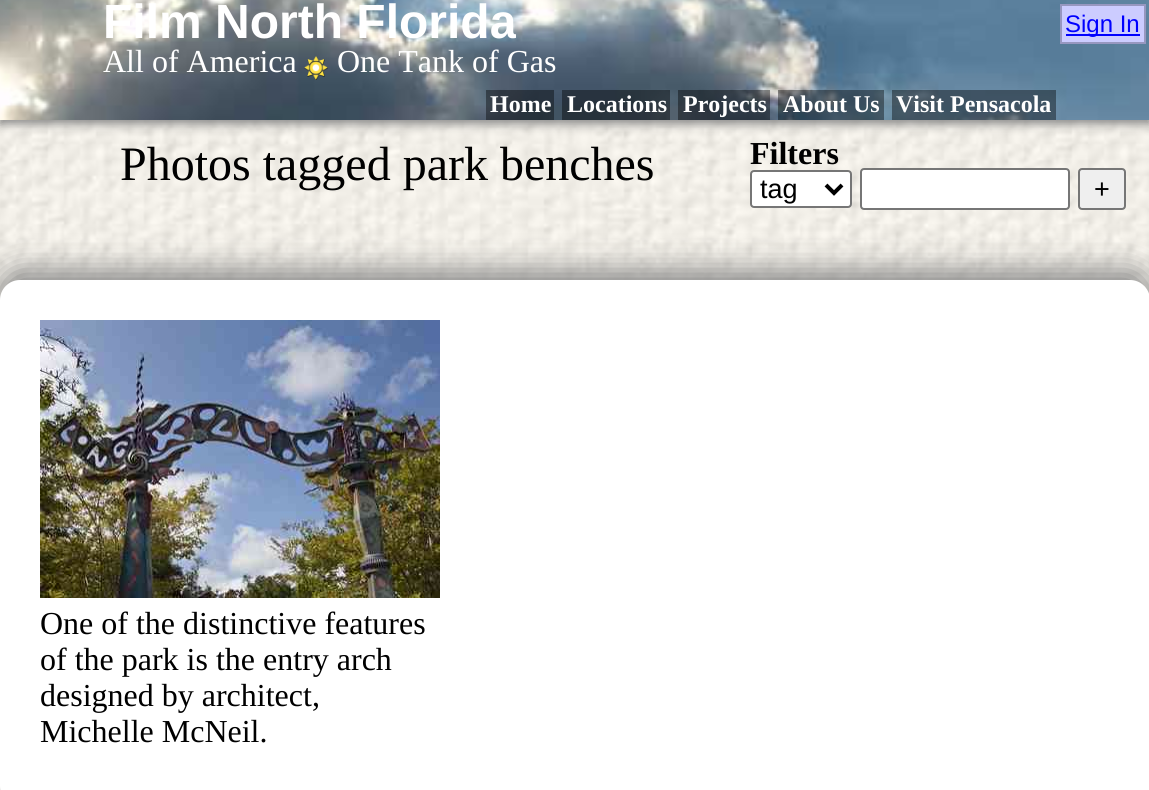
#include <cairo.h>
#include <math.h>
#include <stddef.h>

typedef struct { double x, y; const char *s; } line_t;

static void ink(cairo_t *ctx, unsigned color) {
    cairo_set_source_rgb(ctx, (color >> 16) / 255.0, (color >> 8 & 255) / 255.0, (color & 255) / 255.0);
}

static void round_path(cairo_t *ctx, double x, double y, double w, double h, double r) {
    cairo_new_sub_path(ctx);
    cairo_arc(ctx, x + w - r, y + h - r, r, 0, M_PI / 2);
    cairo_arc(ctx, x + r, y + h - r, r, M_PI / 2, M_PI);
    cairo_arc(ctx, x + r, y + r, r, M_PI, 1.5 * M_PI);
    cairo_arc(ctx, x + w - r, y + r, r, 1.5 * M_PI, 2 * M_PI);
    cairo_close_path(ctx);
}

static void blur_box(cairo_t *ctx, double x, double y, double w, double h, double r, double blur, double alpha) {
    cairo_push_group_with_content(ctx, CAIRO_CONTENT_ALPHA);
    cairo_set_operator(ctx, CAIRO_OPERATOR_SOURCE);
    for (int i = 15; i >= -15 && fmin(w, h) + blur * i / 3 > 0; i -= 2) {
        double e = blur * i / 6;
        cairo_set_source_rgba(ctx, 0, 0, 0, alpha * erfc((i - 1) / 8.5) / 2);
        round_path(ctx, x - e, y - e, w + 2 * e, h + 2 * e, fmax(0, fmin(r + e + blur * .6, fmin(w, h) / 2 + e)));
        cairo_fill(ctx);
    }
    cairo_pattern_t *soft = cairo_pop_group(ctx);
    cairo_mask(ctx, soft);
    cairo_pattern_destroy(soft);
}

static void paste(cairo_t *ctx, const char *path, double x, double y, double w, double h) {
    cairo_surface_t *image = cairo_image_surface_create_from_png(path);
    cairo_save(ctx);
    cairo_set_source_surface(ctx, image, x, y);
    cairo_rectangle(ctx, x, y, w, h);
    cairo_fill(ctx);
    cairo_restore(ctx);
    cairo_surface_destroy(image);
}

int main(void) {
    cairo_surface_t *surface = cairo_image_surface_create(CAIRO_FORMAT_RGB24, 1149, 790);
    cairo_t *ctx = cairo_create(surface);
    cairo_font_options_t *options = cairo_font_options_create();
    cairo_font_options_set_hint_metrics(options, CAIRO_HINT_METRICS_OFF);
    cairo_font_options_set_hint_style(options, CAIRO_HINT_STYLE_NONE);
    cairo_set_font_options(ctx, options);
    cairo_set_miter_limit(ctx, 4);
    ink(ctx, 0xFFFFFF);
    cairo_paint(ctx);
    paste(ctx, "media/1.png", 0, 120, 1149, 670);
    ink(ctx, 0x888888);
    blur_box(ctx, 0, 4, 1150, 120, 0, 5, 1);
    paste(ctx, "media/2.png", 0, 0, 1149, 120);
    cairo_save(ctx);
    cairo_rectangle(ctx, 104, 0, 412, 50);
    cairo_clip(ctx);
    cairo_select_font_face(ctx, "Liberation Sans", CAIRO_FONT_SLANT_NORMAL, CAIRO_FONT_WEIGHT_BOLD);
    cairo_set_font_size(ctx, 48);
    ink(ctx, 0xFFFFFF);
    cairo_move_to(ctx, 103, 38);
    cairo_show_text(ctx, "Film North Florida");
    cairo_restore(ctx);
    cairo_select_font_face(ctx, "Liberation Serif", CAIRO_FONT_SLANT_NORMAL, CAIRO_FONT_WEIGHT_NORMAL);
    cairo_set_font_size(ctx, 32);
    ink(ctx, 0xFFFFFF);
    cairo_move_to(ctx, 103, 72);
    cairo_show_text(ctx, "All of America");
    paste(ctx, "media/3.png", 304, 56, 24, 24);
    cairo_move_to(ctx, 337, 72);
    cairo_show_text(ctx, "One Tank of Gas");
    cairo_set_source_rgba(ctx, 0, 0, 0, 0.4);
    cairo_rectangle(ctx, 486, 90, 68, 30);
    cairo_fill(ctx);
    cairo_select_font_face(ctx, "Liberation Serif", CAIRO_FONT_SLANT_NORMAL, CAIRO_FONT_WEIGHT_BOLD);
    cairo_set_font_size(ctx, 24);
    ink(ctx, 0xFFFFFF);
    cairo_move_to(ctx, 490, 112);
    cairo_show_text(ctx, "Home");
    cairo_set_source_rgba(ctx, 0, 0, 0, 0.4);
    cairo_rectangle(ctx, 562, 90, 108, 30);
    cairo_fill(ctx);
    ink(ctx, 0xFFFFFF);
    cairo_move_to(ctx, 567, 112);
    cairo_show_text(ctx, "Locations");
    cairo_set_source_rgba(ctx, 0, 0, 0, 0.4);
    cairo_rectangle(ctx, 678, 90, 92, 30);
    cairo_fill(ctx);
    ink(ctx, 0xFFFFFF);
    cairo_move_to(ctx, 683, 112);
    cairo_show_text(ctx, "Projects");
    cairo_set_source_rgba(ctx, 0, 0, 0, 0.4);
    cairo_rectangle(ctx, 778, 90, 106, 30);
    cairo_fill(ctx);
    ink(ctx, 0xFFFFFF);
    cairo_move_to(ctx, 783, 112);
    cairo_show_text(ctx, "About Us");
    cairo_set_source_rgba(ctx, 0, 0, 0, 0.4);
    cairo_rectangle(ctx, 892, 90, 164, 30);
    cairo_fill(ctx);
    ink(ctx, 0xFFFFFF);
    cairo_move_to(ctx, 896, 112);
    cairo_show_text(ctx, "Visit Pensacola");
    ink(ctx, 0xCCCCFF);
    cairo_rectangle(ctx, 1061, 5, 84, 38);
    cairo_fill_preserve(ctx);
    ink(ctx, 0x9797C0);
    cairo_stroke(ctx);
    ink(ctx, 0x0000FF);
    cairo_rectangle(ctx, 1066, 34, 74, 2);
    cairo_fill(ctx);
    cairo_select_font_face(ctx, "Liberation Sans", CAIRO_FONT_SLANT_NORMAL, CAIRO_FONT_WEIGHT_NORMAL);
    cairo_move_to(ctx, 1065, 32);
    cairo_show_text(ctx, "Sign In");
    cairo_select_font_face(ctx, "Liberation Serif", CAIRO_FONT_SLANT_NORMAL, CAIRO_FONT_WEIGHT_NORMAL);
    cairo_set_font_size(ctx, 48);
    ink(ctx, 0x000000);
    cairo_move_to(ctx, 120, 180);
    cairo_show_text(ctx, "Photos tagged park benches");
    cairo_select_font_face(ctx, "Liberation Serif", CAIRO_FONT_SLANT_NORMAL, CAIRO_FONT_WEIGHT_BOLD);
    cairo_set_font_size(ctx, 32);
    cairo_move_to(ctx, 750, 164);
    cairo_show_text(ctx, "Filters");
    ink(ctx, 0xFFFFFF);
    round_path(ctx, 751, 171, 100, 36, 3);
    cairo_fill_preserve(ctx);
    ink(ctx, 0x767676);
    cairo_stroke(ctx);
    cairo_new_path(ctx);
    cairo_move_to(ctx, 826, 185);
    cairo_line_to(ctx, 834, 193);
    cairo_line_to(ctx, 842, 185);
    ink(ctx, 0x000000);
    cairo_set_line_width(ctx, 4);
    cairo_stroke(ctx);
    cairo_select_font_face(ctx, "Liberation Sans", CAIRO_FONT_SLANT_NORMAL, CAIRO_FONT_WEIGHT_NORMAL);
    cairo_set_font_size(ctx, 27);
    cairo_move_to(ctx, 760, 198);
    cairo_show_text(ctx, "tag");
    ink(ctx, 0xFFFFFF);
    round_path(ctx, 861, 169, 208, 40, 3);
    cairo_fill_preserve(ctx);
    ink(ctx, 0x767676);
    cairo_set_line_width(ctx, 2);
    cairo_stroke(ctx);
    ink(ctx, 0xEFEFEF);
    round_path(ctx, 1079, 169, 46, 40, 3);
    cairo_fill_preserve(ctx);
    ink(ctx, 0x767676);
    cairo_stroke(ctx);
    ink(ctx, 0x000000);
    cairo_move_to(ctx, 1094, 198);
    cairo_show_text(ctx, "+");
    ink(ctx, 0x888888);
    blur_box(ctx, 0, 270, 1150, 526, 20, 15, 1);
    ink(ctx, 0xFFFFFF);
    round_path(ctx, 0, 280, 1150, 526, 20);
    cairo_fill(ctx);
    paste(ctx, "media/4.png", 40, 320, 400, 278);
    cairo_select_font_face(ctx, "Liberation Serif", CAIRO_FONT_SLANT_NORMAL, CAIRO_FONT_WEIGHT_NORMAL);
    cairo_set_font_size(ctx, 32);
    ink(ctx, 0x000000);
    {
        static const line_t items[] = {
            {40, 634, "One of the distinctive features"},
            {40, 670, "of the park is the entry arch"},
            {40, 706, "designed by architect,"},
            {40, 742, "Michelle McNeil."},
        };
        for (size_t i = 0; i < sizeof items / sizeof *items; i++) {
            cairo_move_to(ctx, items[i].x, items[i].y);
            cairo_show_text(ctx, items[i].s);
        }
    }
    cairo_surface_write_to_png(surface, "image.png");
    cairo_font_options_destroy(options);
    cairo_destroy(ctx);
    cairo_surface_destroy(surface);
    return 0;
}
